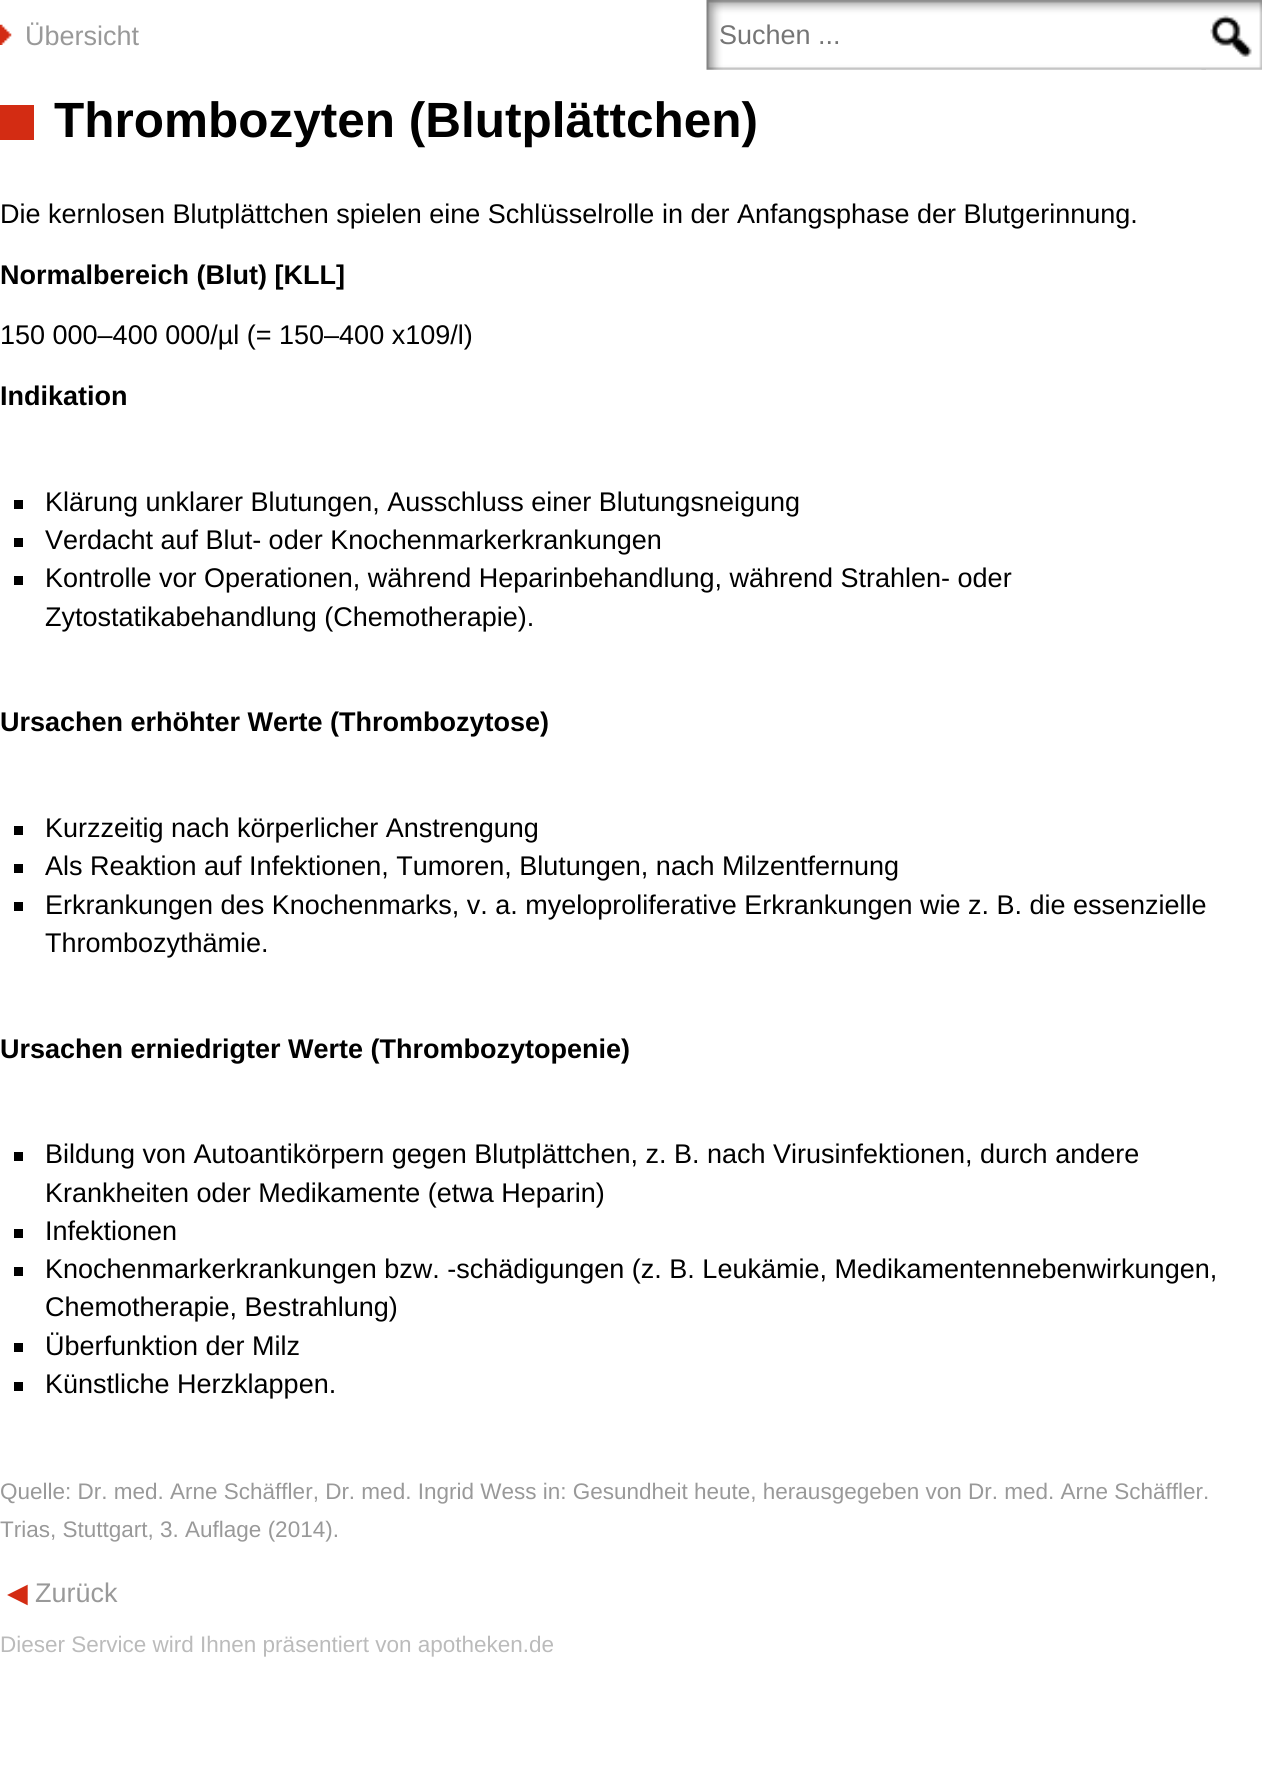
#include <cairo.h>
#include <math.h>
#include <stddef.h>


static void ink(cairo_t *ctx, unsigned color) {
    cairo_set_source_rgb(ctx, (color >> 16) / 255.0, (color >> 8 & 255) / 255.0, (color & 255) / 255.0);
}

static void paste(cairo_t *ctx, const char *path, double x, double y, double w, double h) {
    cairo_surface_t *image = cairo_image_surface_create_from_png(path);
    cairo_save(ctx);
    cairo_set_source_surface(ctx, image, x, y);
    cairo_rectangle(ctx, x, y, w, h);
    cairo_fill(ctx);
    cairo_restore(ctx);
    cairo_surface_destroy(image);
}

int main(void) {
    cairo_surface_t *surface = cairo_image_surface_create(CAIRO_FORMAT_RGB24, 1262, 1791);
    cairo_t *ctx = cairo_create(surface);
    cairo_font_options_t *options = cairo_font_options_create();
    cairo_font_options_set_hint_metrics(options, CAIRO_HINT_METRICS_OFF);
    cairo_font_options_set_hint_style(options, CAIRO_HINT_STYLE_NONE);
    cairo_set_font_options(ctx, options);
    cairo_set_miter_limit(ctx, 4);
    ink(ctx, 0xFFFFFF);
    cairo_paint(ctx);
    paste(ctx, "media/1.png", 0, 24, 12, 21);
    cairo_select_font_face(ctx, "Liberation Sans", CAIRO_FONT_SLANT_NORMAL, CAIRO_FONT_WEIGHT_NORMAL);
    cairo_set_font_size(ctx, 27);
    ink(ctx, 0x999999);
    cairo_move_to(ctx, 25, 45);
    cairo_show_text(ctx, "Übersicht");
    paste(ctx, "media/2.png", 706, 0, 500, 70);
    ink(ctx, 0x757575);
    cairo_move_to(ctx, 719, 44);
    cairo_show_text(ctx, "Suchen ...");
    paste(ctx, "media/3.png", 1201, 0, 61, 70);
    ink(ctx, 0xD32C13);
    cairo_rectangle(ctx, 0, 105, 34, 35);
    cairo_fill(ctx);
    cairo_select_font_face(ctx, "Liberation Sans", CAIRO_FONT_SLANT_NORMAL, CAIRO_FONT_WEIGHT_BOLD);
    cairo_set_font_size(ctx, 49.5);
    ink(ctx, 0x000000);
    cairo_move_to(ctx, 54, 137);
    cairo_show_text(ctx, "Thrombozyten (Blutplättchen)");
    cairo_select_font_face(ctx, "Liberation Sans", CAIRO_FONT_SLANT_NORMAL, CAIRO_FONT_WEIGHT_NORMAL);
    cairo_set_font_size(ctx, 27);
    cairo_move_to(ctx, 0, 223);
    cairo_show_text(ctx, "Die kernlosen Blutplättchen spielen eine Schlüsselrolle in der Anfangsphase der Blutgerinnung.");
    cairo_select_font_face(ctx, "Liberation Sans", CAIRO_FONT_SLANT_NORMAL, CAIRO_FONT_WEIGHT_BOLD);
    cairo_move_to(ctx, 0, 284);
    cairo_show_text(ctx, "Normalbereich (Blut) [KLL]");
    cairo_select_font_face(ctx, "Liberation Sans", CAIRO_FONT_SLANT_NORMAL, CAIRO_FONT_WEIGHT_NORMAL);
    cairo_move_to(ctx, 0, 344);
    cairo_show_text(ctx, "150 000–400 000/µl (= 150–400 x109/l)");
    cairo_select_font_face(ctx, "Liberation Sans", CAIRO_FONT_SLANT_NORMAL, CAIRO_FONT_WEIGHT_BOLD);
    cairo_move_to(ctx, 0, 405);
    cairo_show_text(ctx, "Indikation");
    cairo_rectangle(ctx, 14, 500, 9, 9);
    cairo_fill(ctx);
    cairo_select_font_face(ctx, "Liberation Sans", CAIRO_FONT_SLANT_NORMAL, CAIRO_FONT_WEIGHT_NORMAL);
    cairo_move_to(ctx, 45, 511);
    cairo_show_text(ctx, "Klärung unklarer Blutungen, Ausschluss einer Blutungsneigung");
    cairo_rectangle(ctx, 14, 538, 9, 9);
    cairo_fill(ctx);
    cairo_move_to(ctx, 45, 549);
    cairo_show_text(ctx, "Verdacht auf Blut- oder Knochenmarkerkrankungen");
    cairo_rectangle(ctx, 14, 576, 9, 9);
    cairo_fill(ctx);
    cairo_move_to(ctx, 45, 587);
    cairo_show_text(ctx, "Kontrolle vor Operationen, während Heparinbehandlung, während Strahlen- oder");
    cairo_move_to(ctx, 45, 626);
    cairo_show_text(ctx, "Zytostatikabehandlung (Chemotherapie).");
    cairo_select_font_face(ctx, "Liberation Sans", CAIRO_FONT_SLANT_NORMAL, CAIRO_FONT_WEIGHT_BOLD);
    cairo_move_to(ctx, 0, 731);
    cairo_show_text(ctx, "Ursachen erhöhter Werte (Thrombozytose)");
    cairo_rectangle(ctx, 14, 826, 9, 9);
    cairo_fill(ctx);
    cairo_select_font_face(ctx, "Liberation Sans", CAIRO_FONT_SLANT_NORMAL, CAIRO_FONT_WEIGHT_NORMAL);
    cairo_move_to(ctx, 45, 837);
    cairo_show_text(ctx, "Kurzzeitig nach körperlicher Anstrengung");
    cairo_rectangle(ctx, 14, 864, 9, 9);
    cairo_fill(ctx);
    cairo_move_to(ctx, 45, 875);
    cairo_show_text(ctx, "Als Reaktion auf Infektionen, Tumoren, Blutungen, nach Milzentfernung");
    cairo_rectangle(ctx, 14, 902, 9, 9);
    cairo_fill(ctx);
    cairo_move_to(ctx, 45, 914);
    cairo_show_text(ctx, "Erkrankungen des Knochenmarks, v. a. myeloproliferative Erkrankungen wie z. B. die essenzielle");
    cairo_move_to(ctx, 45, 952);
    cairo_show_text(ctx, "Thrombozythämie.");
    cairo_select_font_face(ctx, "Liberation Sans", CAIRO_FONT_SLANT_NORMAL, CAIRO_FONT_WEIGHT_BOLD);
    cairo_move_to(ctx, 0, 1058);
    cairo_show_text(ctx, "Ursachen erniedrigter Werte (Thrombozytopenie)");
    cairo_rectangle(ctx, 14, 1152, 9, 9);
    cairo_fill(ctx);
    cairo_select_font_face(ctx, "Liberation Sans", CAIRO_FONT_SLANT_NORMAL, CAIRO_FONT_WEIGHT_NORMAL);
    cairo_move_to(ctx, 45, 1163);
    cairo_show_text(ctx, "Bildung von Autoantikörpern gegen Blutplättchen, z. B. nach Virusinfektionen, durch andere");
    cairo_move_to(ctx, 45, 1202);
    cairo_show_text(ctx, "Krankheiten oder Medikamente (etwa Heparin)");
    cairo_rectangle(ctx, 14, 1229, 9, 9);
    cairo_fill(ctx);
    cairo_move_to(ctx, 45, 1240);
    cairo_show_text(ctx, "Infektionen");
    cairo_rectangle(ctx, 14, 1267, 9, 9);
    cairo_fill(ctx);
    cairo_move_to(ctx, 45, 1278);
    cairo_show_text(ctx, "Knochenmarkerkrankungen bzw. -schädigungen (z. B. Leukämie, Medikamentennebenwirkungen,");
    cairo_move_to(ctx, 45, 1316);
    cairo_show_text(ctx, "Chemotherapie, Bestrahlung)");
    cairo_rectangle(ctx, 14, 1343, 9, 9);
    cairo_fill(ctx);
    cairo_move_to(ctx, 45, 1355);
    cairo_show_text(ctx, "Überfunktion der Milz");
    cairo_rectangle(ctx, 14, 1382, 9, 9);
    cairo_fill(ctx);
    cairo_move_to(ctx, 45, 1393);
    cairo_show_text(ctx, "Künstliche Herzklappen.");
    cairo_set_font_size(ctx, 22.5);
    ink(ctx, 0x999999);
    cairo_move_to(ctx, 0, 1499);
    cairo_show_text(ctx, "Quelle: Dr. med. Arne Schäffler, Dr. med. Ingrid Wess in: Gesundheit heute, herausgegeben von Dr. med. Arne Schäffler.");
    cairo_move_to(ctx, 0, 1537);
    cairo_show_text(ctx, "Trias, Stuttgart, 3. Auflage (2014).");
    cairo_select_font_face(ctx, "DejaVu Sans", CAIRO_FONT_SLANT_NORMAL, CAIRO_FONT_WEIGHT_NORMAL);
    cairo_set_font_size(ctx, 27);
    ink(ctx, 0xD32C13);
    cairo_move_to(ctx, 7, 1602);
    cairo_show_text(ctx, "◀");
    cairo_select_font_face(ctx, "Liberation Sans", CAIRO_FONT_SLANT_NORMAL, CAIRO_FONT_WEIGHT_NORMAL);
    ink(ctx, 0x999999);
    cairo_move_to(ctx, 35, 1602);
    cairo_show_text(ctx, "Zurück");
    cairo_set_font_size(ctx, 22.5);
    ink(ctx, 0xBBBBBB);
    cairo_move_to(ctx, 0, 1652);
    cairo_show_text(ctx, "Dieser Service wird Ihnen präsentiert von apotheken.de");
    cairo_surface_write_to_png(surface, "image.png");
    cairo_font_options_destroy(options);
    cairo_destroy(ctx);
    cairo_surface_destroy(surface);
    return 0;
}
